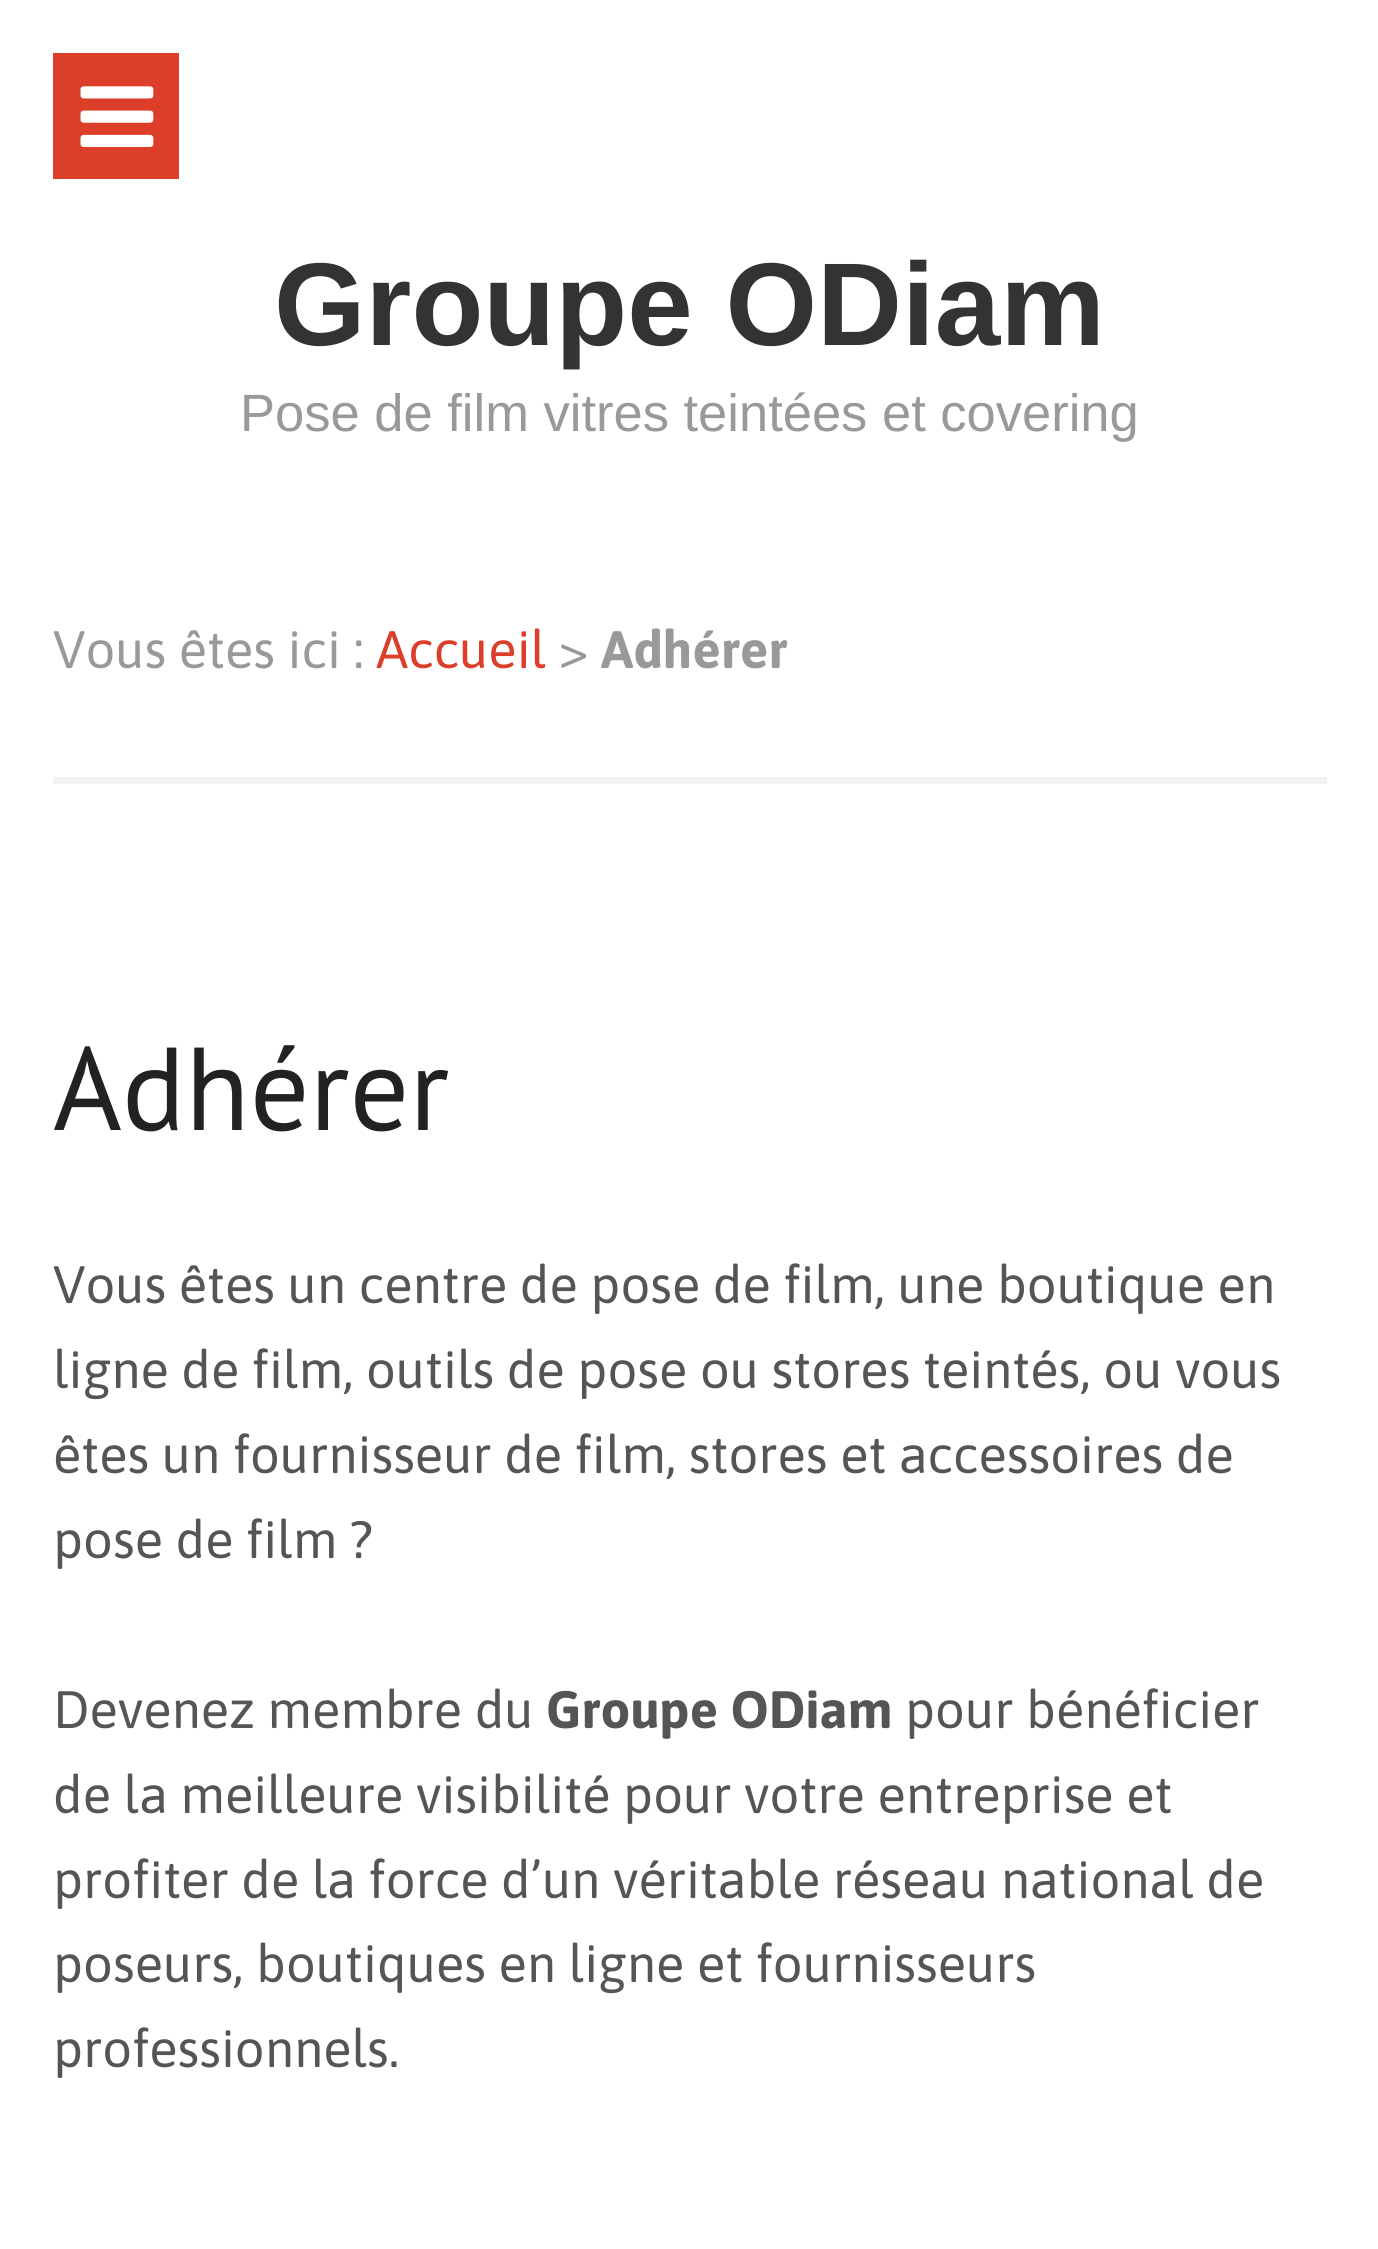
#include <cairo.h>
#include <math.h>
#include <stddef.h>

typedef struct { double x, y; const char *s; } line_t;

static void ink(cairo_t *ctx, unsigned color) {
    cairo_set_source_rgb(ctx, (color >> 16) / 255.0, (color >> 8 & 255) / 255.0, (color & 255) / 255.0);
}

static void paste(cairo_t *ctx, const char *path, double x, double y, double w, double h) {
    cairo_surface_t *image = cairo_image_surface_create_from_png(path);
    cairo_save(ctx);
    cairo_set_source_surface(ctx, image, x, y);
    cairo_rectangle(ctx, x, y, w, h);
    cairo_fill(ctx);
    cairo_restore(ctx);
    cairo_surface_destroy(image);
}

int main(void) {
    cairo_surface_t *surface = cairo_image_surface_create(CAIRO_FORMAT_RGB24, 1378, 2249);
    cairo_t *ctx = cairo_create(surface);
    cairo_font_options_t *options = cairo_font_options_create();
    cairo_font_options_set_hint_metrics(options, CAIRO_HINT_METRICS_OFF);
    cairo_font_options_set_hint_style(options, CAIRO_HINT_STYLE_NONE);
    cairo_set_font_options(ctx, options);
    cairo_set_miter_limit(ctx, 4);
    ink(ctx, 0xFFFFFF);
    cairo_paint(ctx);
    ink(ctx, 0xDC3E29);
    cairo_rectangle(ctx, 53, 53, 126, 126);
    cairo_fill(ctx);
    paste(ctx, "media/1.png", 80, 86, 74, 61);
    cairo_select_font_face(ctx, "Liberation Sans", CAIRO_FONT_SLANT_NORMAL, CAIRO_FONT_WEIGHT_BOLD);
    cairo_set_font_size(ctx, 117.75);
    ink(ctx, 0x333333);
    cairo_move_to(ctx, 274, 345);
    cairo_show_text(ctx, "Groupe ODiam");
    cairo_select_font_face(ctx, "Liberation Sans", CAIRO_FONT_SLANT_NORMAL, CAIRO_FONT_WEIGHT_NORMAL);
    cairo_set_font_size(ctx, 52.5);
    ink(ctx, 0x999999);
    cairo_move_to(ctx, 240, 431);
    cairo_show_text(ctx, "Pose de film vitres teintées et covering");
    ink(ctx, 0xF2F2F2);
    cairo_rectangle(ctx, 53, 777, 1274, 7);
    cairo_fill(ctx);
    cairo_select_font_face(ctx, "Asap", CAIRO_FONT_SLANT_NORMAL, CAIRO_FONT_WEIGHT_NORMAL);
    ink(ctx, 0x999999);
    cairo_move_to(ctx, 53, 668);
    cairo_show_text(ctx, "Vous êtes ici :");
    ink(ctx, 0xDC3E29);
    cairo_move_to(ctx, 376, 668);
    cairo_show_text(ctx, "Accueil");
    ink(ctx, 0x999999);
    cairo_move_to(ctx, 559, 668);
    cairo_show_text(ctx, ">");
    cairo_select_font_face(ctx, "Asap", CAIRO_FONT_SLANT_NORMAL, CAIRO_FONT_WEIGHT_BOLD);
    cairo_move_to(ctx, 601, 668);
    cairo_show_text(ctx, "Adhérer");
    cairo_select_font_face(ctx, "PT Sans", CAIRO_FONT_SLANT_NORMAL, CAIRO_FONT_WEIGHT_NORMAL);
    cairo_set_font_size(ctx, 117.75);
    ink(ctx, 0x222222);
    cairo_move_to(ctx, 53, 1130);
    cairo_show_text(ctx, "Adhérer");
    cairo_select_font_face(ctx, "Asap", CAIRO_FONT_SLANT_NORMAL, CAIRO_FONT_WEIGHT_NORMAL);
    cairo_set_font_size(ctx, 52.5);
    ink(ctx, 0x555555);
    {
        static const line_t items[] = {
            {53, 1303, "Vous êtes un centre de pose de film, une boutique en"},
            {53, 1388, "ligne de film, outils de pose ou stores teintés, ou vous"},
            {53, 1473, "êtes un fournisseur de film, stores et accessoires de"},
            {53, 1558, "pose de film ?"},
            {53, 1728, "Devenez membre du"},
        };
        for (size_t i = 0; i < sizeof items / sizeof *items; i++) {
            cairo_move_to(ctx, items[i].x, items[i].y);
            cairo_show_text(ctx, items[i].s);
        }
    }
    cairo_select_font_face(ctx, "Asap", CAIRO_FONT_SLANT_NORMAL, CAIRO_FONT_WEIGHT_BOLD);
    cairo_move_to(ctx, 546, 1728);
    cairo_show_text(ctx, "Groupe ODiam");
    cairo_select_font_face(ctx, "Asap", CAIRO_FONT_SLANT_NORMAL, CAIRO_FONT_WEIGHT_NORMAL);
    {
        static const line_t items[] = {
            {905, 1728, "pour bénéficier"},
            {53, 1813, "de la meilleure visibilité pour votre entreprise et"},
            {53, 1898, "profiter de la force d’un véritable réseau national de"},
            {53, 1982, "poseurs, boutiques en ligne et fournisseurs"},
            {53, 2067, "professionnels."},
        };
        for (size_t i = 0; i < sizeof items / sizeof *items; i++) {
            cairo_move_to(ctx, items[i].x, items[i].y);
            cairo_show_text(ctx, items[i].s);
        }
    }
    cairo_surface_write_to_png(surface, "image.png");
    cairo_font_options_destroy(options);
    cairo_destroy(ctx);
    cairo_surface_destroy(surface);
    return 0;
}
